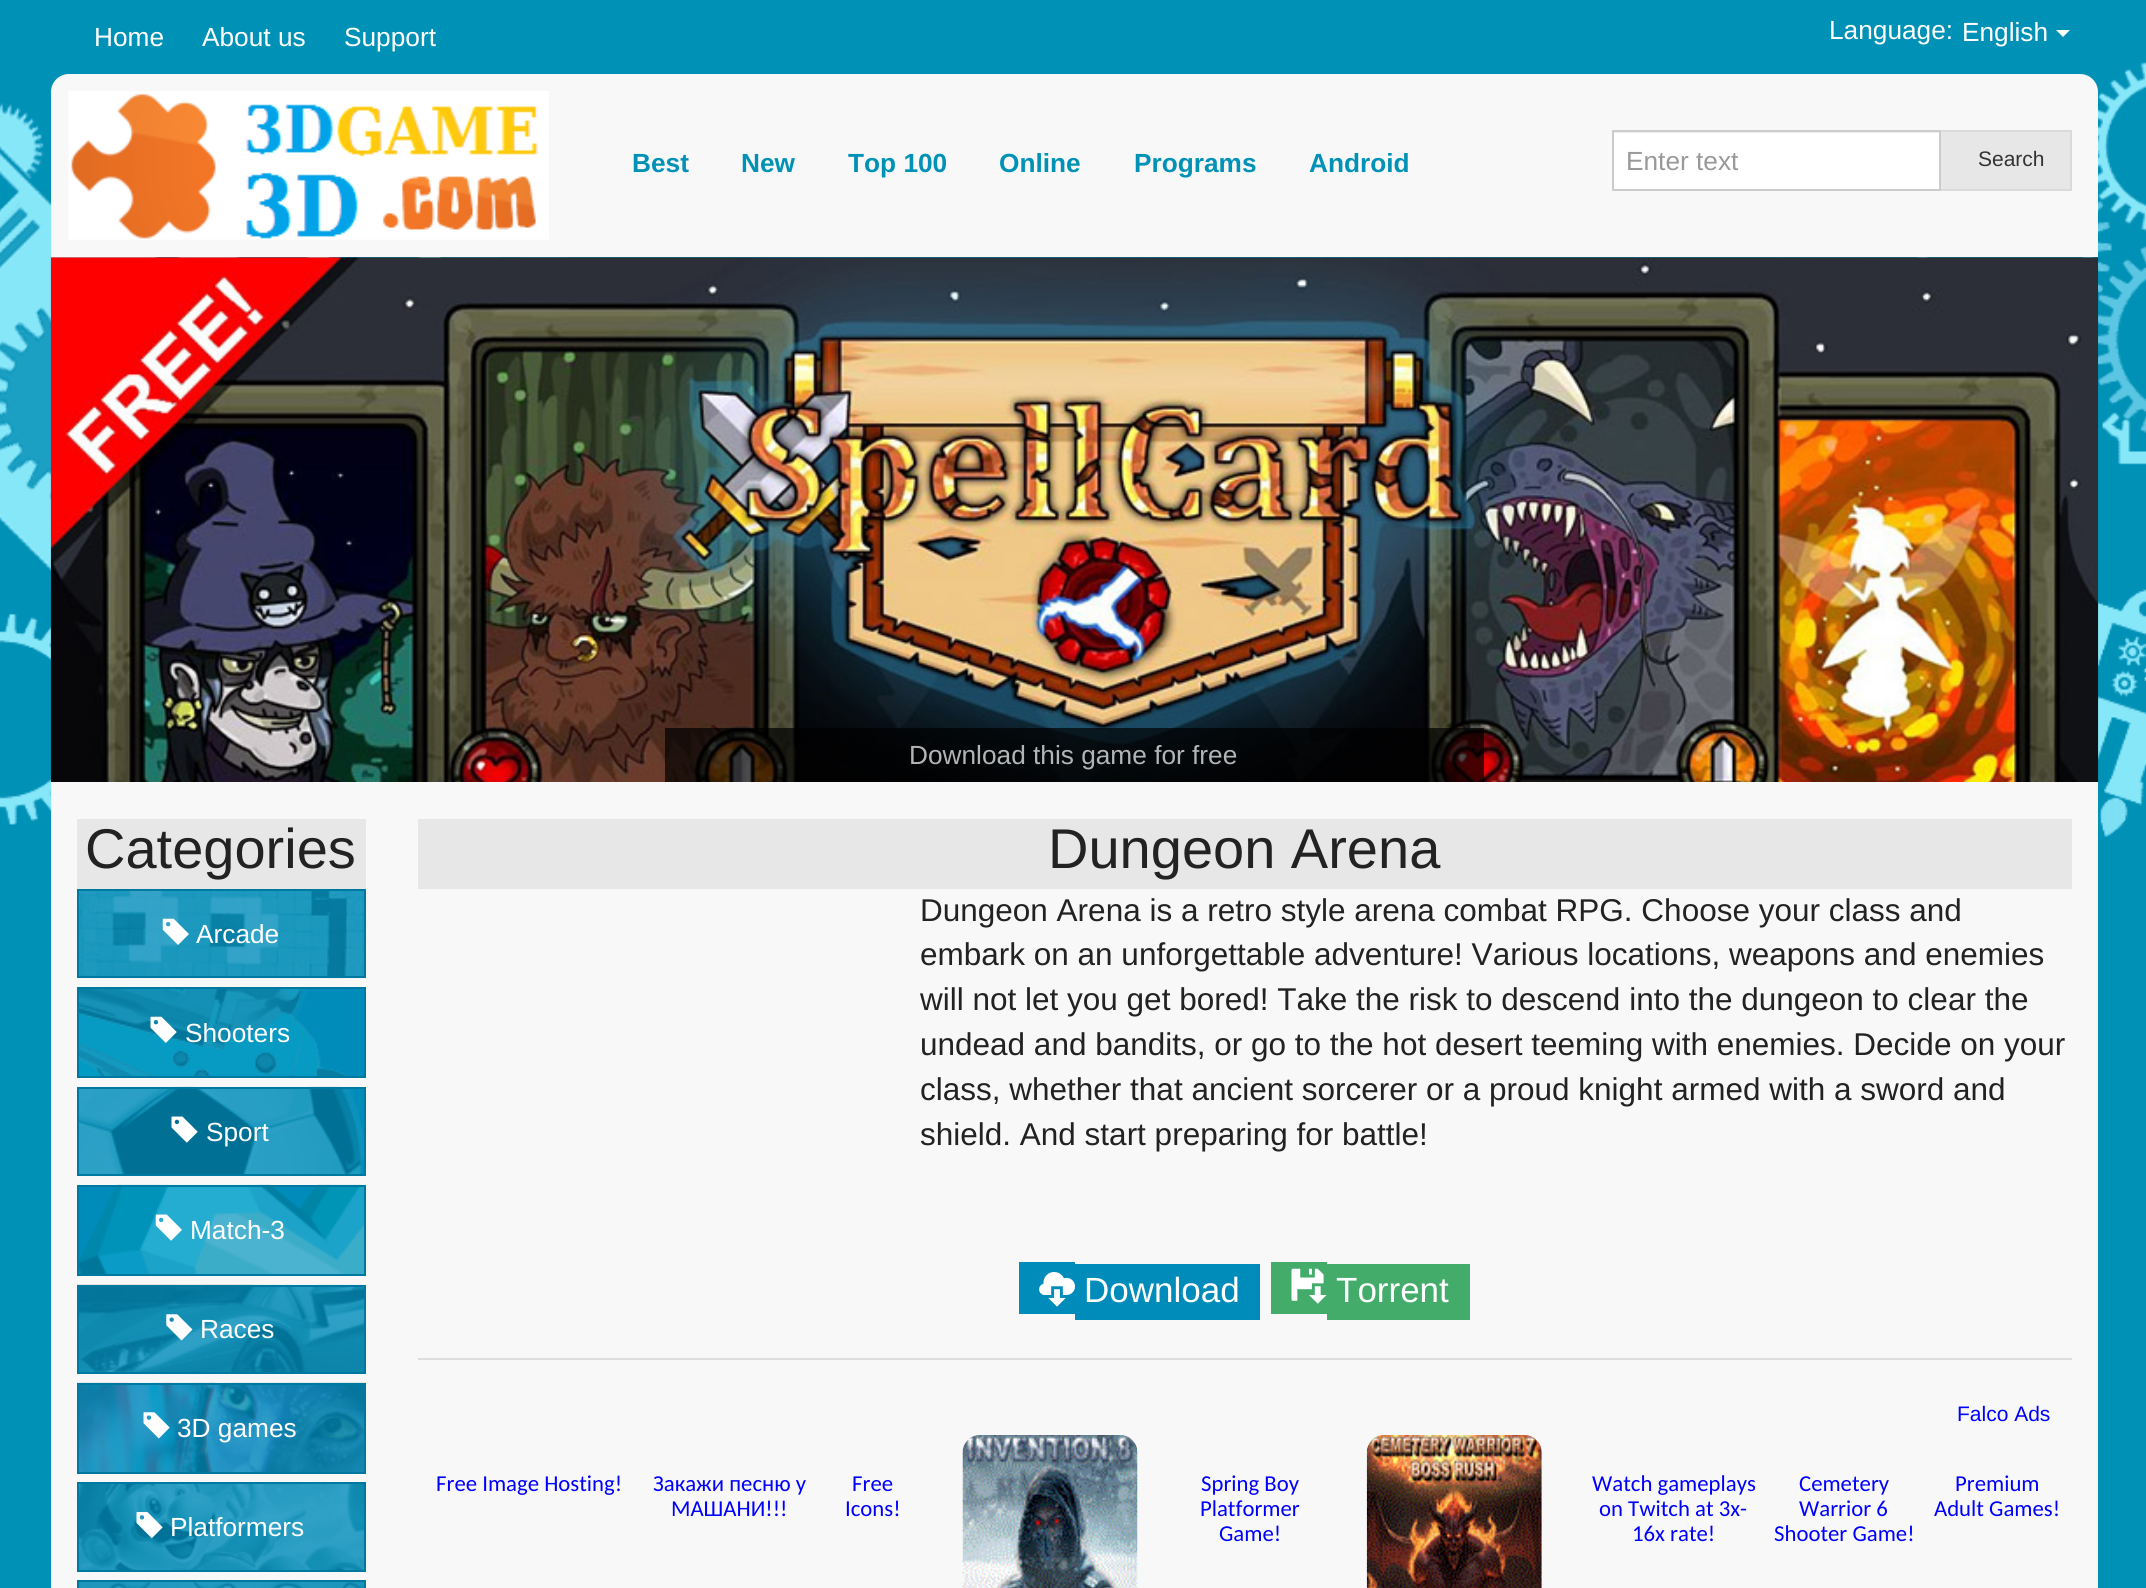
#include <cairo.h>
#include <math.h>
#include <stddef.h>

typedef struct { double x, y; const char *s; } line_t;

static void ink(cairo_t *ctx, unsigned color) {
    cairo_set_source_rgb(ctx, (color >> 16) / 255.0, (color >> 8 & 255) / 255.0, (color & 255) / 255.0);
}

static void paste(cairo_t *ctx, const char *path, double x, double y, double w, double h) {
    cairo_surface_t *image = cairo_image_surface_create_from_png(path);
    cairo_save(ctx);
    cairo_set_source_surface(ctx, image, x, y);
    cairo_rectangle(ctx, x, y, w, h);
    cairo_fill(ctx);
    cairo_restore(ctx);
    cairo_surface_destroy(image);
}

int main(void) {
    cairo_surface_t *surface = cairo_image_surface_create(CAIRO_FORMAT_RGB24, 2146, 1588);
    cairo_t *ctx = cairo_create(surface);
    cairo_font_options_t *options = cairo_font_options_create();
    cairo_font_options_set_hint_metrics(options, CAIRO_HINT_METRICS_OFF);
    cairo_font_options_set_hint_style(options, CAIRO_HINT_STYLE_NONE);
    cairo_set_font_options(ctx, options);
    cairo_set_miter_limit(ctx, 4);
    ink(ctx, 0x0092B6);
    cairo_paint(ctx);
    paste(ctx, "media/1.png", 0, 62, 2146, 775);
    cairo_select_font_face(ctx, "Liberation Sans", CAIRO_FONT_SLANT_NORMAL, CAIRO_FONT_WEIGHT_NORMAL);
    cairo_set_font_size(ctx, 26.25);
    ink(ctx, 0xFFFFFF);
    {
        static const line_t items[] = {
            {94, 46, "Home"},
            {202, 46, "About us"},
            {344, 46, "Support"},
            {1829, 39, "Language:"},
            {1962, 41, "English"},
        };
        for (size_t i = 0; i < sizeof items / sizeof *items; i++) {
            cairo_move_to(ctx, items[i].x, items[i].y);
            cairo_show_text(ctx, items[i].s);
        }
    }
    cairo_new_path(ctx);
    cairo_move_to(ctx, 2056, 30);
    cairo_line_to(ctx, 2070, 30);
    cairo_line_to(ctx, 2063, 37);
    cairo_close_path(ctx);
    cairo_fill(ctx);
    ink(ctx, 0xF8F8F8);
    cairo_new_path(ctx);
    cairo_move_to(ctx, 69, 74);
    cairo_line_to(ctx, 2080, 74);
    cairo_curve_to(ctx, 2090, 74, 2098, 82, 2098, 92);
    cairo_line_to(ctx, 2098, 257);
    cairo_line_to(ctx, 51, 257);
    cairo_line_to(ctx, 51, 92);
    cairo_curve_to(ctx, 51, 82, 59, 74, 69, 74);
    cairo_close_path(ctx);
    cairo_fill(ctx);
    paste(ctx, "media/2.png", 68, 91, 481, 149);
    cairo_select_font_face(ctx, "Liberation Sans", CAIRO_FONT_SLANT_NORMAL, CAIRO_FONT_WEIGHT_BOLD);
    ink(ctx, 0x0092B6);
    {
        static const line_t items[] = {
            {632, 172, "Best"},
            {741, 172, "New"},
            {848, 172, "Top 100"},
            {999, 172, "Online"},
            {1134, 172, "Programs"},
            {1309, 172, "Android"},
        };
        for (size_t i = 0; i < sizeof items / sizeof *items; i++) {
            cairo_move_to(ctx, items[i].x, items[i].y);
            cairo_show_text(ctx, items[i].s);
        }
    }
    ink(ctx, 0xFFFFFF);
    cairo_rectangle(ctx, 1614, 133, 325, 56);
    cairo_fill(ctx);
    ink(ctx, 0xECECEC);
    cairo_rectangle(ctx, 1614, 132, 325, 1);
    cairo_fill(ctx);
    ink(ctx, 0xE7E7E7);
    cairo_rectangle(ctx, 1940, 131, 131, 59);
    cairo_fill_preserve(ctx);
    ink(ctx, 0xDADADA);
    cairo_stroke(ctx);
    cairo_rectangle(ctx, 1613, 131, 327, 59);
    ink(ctx, 0xCCCCCC);
    cairo_stroke(ctx);
    cairo_select_font_face(ctx, "Liberation Sans", CAIRO_FONT_SLANT_NORMAL, CAIRO_FONT_WEIGHT_NORMAL);
    ink(ctx, 0x999999);
    cairo_move_to(ctx, 1626, 170);
    cairo_show_text(ctx, "Enter text");
    cairo_set_font_size(ctx, 21);
    ink(ctx, 0x333333);
    cairo_move_to(ctx, 1978, 166);
    cairo_show_text(ctx, "Search");
    paste(ctx, "media/3.png", 50, 257, 2049, 525);
    cairo_set_source_rgba(ctx, 0, 0, 0, 0.7);
    cairo_rectangle(ctx, 665, 728, 819, 54);
    cairo_fill(ctx);
    cairo_set_font_size(ctx, 26.25);
    ink(ctx, 0xB3B5B5);
    cairo_move_to(ctx, 909, 764);
    cairo_show_text(ctx, "Download this game for free");
    ink(ctx, 0xF8F8F8);
    cairo_rectangle(ctx, 51, 782, 2047, 806);
    cairo_fill(ctx);
    ink(ctx, 0xE7E7E7);
    cairo_rectangle(ctx, 77, 819, 289, 70);
    cairo_fill(ctx);
    cairo_set_font_size(ctx, 56);
    ink(ctx, 0x222222);
    cairo_move_to(ctx, 85, 868);
    cairo_show_text(ctx, "Categories");
    ink(ctx, 0x008CBA);
    cairo_rectangle(ctx, 79, 891, 285, 85);
    cairo_fill(ctx);
    paste(ctx, "media/4.png", 77, 891, 289, 88);
    cairo_rectangle(ctx, 78, 890, 287, 87);
    ink(ctx, 0x0079A1);
    cairo_stroke(ctx);
    paste(ctx, "media/5.png", 162, 918, 27, 27);
    cairo_set_font_size(ctx, 26.25);
    ink(ctx, 0xFFFFFF);
    cairo_move_to(ctx, 196, 943);
    cairo_show_text(ctx, "Arcade");
    ink(ctx, 0x008CBA);
    cairo_rectangle(ctx, 79, 989, 285, 87);
    cairo_fill(ctx);
    paste(ctx, "media/6.png", 79, 989, 271, 87);
    cairo_rectangle(ctx, 78, 988, 287, 89);
    ink(ctx, 0x0079A1);
    cairo_stroke(ctx);
    paste(ctx, "media/7.png", 150, 1016, 27, 27);
    ink(ctx, 0xFFFFFF);
    cairo_move_to(ctx, 185, 1042);
    cairo_show_text(ctx, "Shooters");
    ink(ctx, 0x008CBA);
    cairo_rectangle(ctx, 79, 1089, 285, 85);
    cairo_fill(ctx);
    paste(ctx, "media/8.png", 77, 1086, 287, 88);
    cairo_rectangle(ctx, 78, 1088, 287, 87);
    ink(ctx, 0x0079A1);
    cairo_stroke(ctx);
    paste(ctx, "media/9.png", 171, 1116, 27, 27);
    ink(ctx, 0xFFFFFF);
    cairo_move_to(ctx, 206, 1141);
    cairo_show_text(ctx, "Sport");
    ink(ctx, 0x008CBA);
    cairo_rectangle(ctx, 79, 1187, 285, 87);
    cairo_fill(ctx);
    paste(ctx, "media/10.png", 79, 1184, 287, 90);
    cairo_rectangle(ctx, 78, 1186, 287, 89);
    ink(ctx, 0x0079A1);
    cairo_stroke(ctx);
    paste(ctx, "media/11.png", 155, 1214, 27, 27);
    ink(ctx, 0xFFFFFF);
    cairo_move_to(ctx, 190, 1239);
    cairo_show_text(ctx, "Match-3");
    ink(ctx, 0x008CBA);
    cairo_rectangle(ctx, 79, 1287, 285, 85);
    cairo_fill(ctx);
    paste(ctx, "media/12.png", 77, 1284, 289, 88);
    cairo_rectangle(ctx, 78, 1286, 287, 87);
    ink(ctx, 0x0079A1);
    cairo_stroke(ctx);
    paste(ctx, "media/13.png", 166, 1314, 27, 27);
    ink(ctx, 0xFFFFFF);
    cairo_move_to(ctx, 200, 1338);
    cairo_show_text(ctx, "Races");
    ink(ctx, 0x008CBA);
    cairo_rectangle(ctx, 79, 1385, 285, 87);
    cairo_fill(ctx);
    paste(ctx, "media/14.png", 77, 1382, 289, 90);
    cairo_rectangle(ctx, 78, 1384, 287, 89);
    ink(ctx, 0x0079A1);
    cairo_stroke(ctx);
    paste(ctx, "media/15.png", 143, 1412, 27, 27);
    ink(ctx, 0xFFFFFF);
    cairo_move_to(ctx, 177, 1437);
    cairo_show_text(ctx, "3D games");
    ink(ctx, 0x008CBA);
    cairo_rectangle(ctx, 79, 1484, 285, 86);
    cairo_fill(ctx);
    paste(ctx, "media/16.png", 79, 1484, 285, 86);
    cairo_rectangle(ctx, 78, 1483, 287, 88);
    ink(ctx, 0x0079A1);
    cairo_stroke(ctx);
    paste(ctx, "media/17.png", 136, 1512, 27, 27);
    ink(ctx, 0xFFFFFF);
    cairo_move_to(ctx, 170, 1536);
    cairo_show_text(ctx, "Platformers");
    ink(ctx, 0x008CBA);
    cairo_rectangle(ctx, 77, 1582, 289, 6);
    cairo_fill(ctx);
    paste(ctx, "media/18.png", 79, 1582, 285, 6);
    cairo_rectangle(ctx, 78, 1581, 287, 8);
    ink(ctx, 0x0079A1);
    cairo_stroke(ctx);
    ink(ctx, 0xE7E7E7);
    cairo_rectangle(ctx, 418, 819, 1654, 70);
    cairo_fill(ctx);
    cairo_set_font_size(ctx, 56);
    ink(ctx, 0x222222);
    cairo_move_to(ctx, 1048, 868);
    cairo_show_text(ctx, "Dungeon Arena");
    cairo_set_font_size(ctx, 31.5);
    {
        static const line_t items[] = {
            {920, 921, "Dungeon Arena is a retro style arena combat RPG. Choose your class and"},
            {920, 965, "embark on an unforgettable adventure! Various locations, weapons and enemies"},
            {920, 1010, "will not let you get bored! Take the risk to descend into the dungeon to clear the"},
            {920, 1055, "undead and bandits, or go to the hot desert teeming with enemies. Decide on your"},
            {920, 1100, "class, whether that ancient sorcerer or a proud knight armed with a sword and"},
            {920, 1145, "shield. And start preparing for battle!"},
        };
        for (size_t i = 0; i < sizeof items / sizeof *items; i++) {
            cairo_move_to(ctx, items[i].x, items[i].y);
            cairo_show_text(ctx, items[i].s);
        }
    }
    ink(ctx, 0x008CBA);
    cairo_rectangle(ctx, 1019, 1262, 56, 52);
    cairo_fill(ctx);
    cairo_rectangle(ctx, 1075, 1264, 185, 56);
    cairo_fill(ctx);
    paste(ctx, "media/19.png", 1039, 1272, 36, 35);
    cairo_set_font_size(ctx, 35);
    ink(ctx, 0xFFFFFF);
    cairo_move_to(ctx, 1084, 1302);
    cairo_show_text(ctx, "Download");
    ink(ctx, 0x43AC6A);
    cairo_rectangle(ctx, 1271, 1262, 56, 52);
    cairo_fill(ctx);
    cairo_rectangle(ctx, 1327, 1264, 143, 56);
    cairo_fill(ctx);
    paste(ctx, "media/20.png", 1291, 1268, 36, 36);
    ink(ctx, 0xFFFFFF);
    cairo_move_to(ctx, 1336, 1302);
    cairo_show_text(ctx, "Torrent");
    ink(ctx, 0xDDDDDD);
    cairo_rectangle(ctx, 418, 1358, 1654, 2);
    cairo_fill(ctx);
    cairo_set_font_size(ctx, 21);
    ink(ctx, 0x0000FF);
    cairo_move_to(ctx, 1957, 1421);
    cairo_show_text(ctx, "Falco Ads");
    cairo_select_font_face(ctx, "Carlito", CAIRO_FONT_SLANT_NORMAL, CAIRO_FONT_WEIGHT_NORMAL);
    cairo_set_font_size(ctx, 22.75);
    {
        static const line_t items[] = {
            {436, 1491, "Free Image Hosting!"},
            {653, 1491, "Закажи песню у"},
            {671, 1516, "МАШАНИ!!!"},
            {852, 1491, "Free"},
            {845, 1516, "Icons!"},
        };
        for (size_t i = 0; i < sizeof items / sizeof *items; i++) {
            cairo_move_to(ctx, items[i].x, items[i].y);
            cairo_show_text(ctx, items[i].s);
        }
    }
    paste(ctx, "media/21.png", 962, 1435, 176, 153);
    {
        static const line_t items[] = {
            {1201, 1491, "Spring Boy"},
            {1200, 1516, "Platformer"},
            {1219, 1541, "Game!"},
        };
        for (size_t i = 0; i < sizeof items / sizeof *items; i++) {
            cairo_move_to(ctx, items[i].x, items[i].y);
            cairo_show_text(ctx, items[i].s);
        }
    }
    paste(ctx, "media/22.png", 1366, 1435, 176, 153);
    {
        static const line_t items[] = {
            {1592, 1491, "Watch gameplays"},
            {1599, 1516, "on Twitch at 3x-"},
            {1632, 1541, "16x rate!"},
            {1799, 1491, "Cemetery"},
            {1799, 1516, "Warrior 6"},
            {1774, 1541, "Shooter Game!"},
            {1955, 1491, "Premium"},
            {1934, 1516, "Adult Games!"},
        };
        for (size_t i = 0; i < sizeof items / sizeof *items; i++) {
            cairo_move_to(ctx, items[i].x, items[i].y);
            cairo_show_text(ctx, items[i].s);
        }
    }
    cairo_surface_write_to_png(surface, "image.png");
    cairo_font_options_destroy(options);
    cairo_destroy(ctx);
    cairo_surface_destroy(surface);
    return 0;
}
